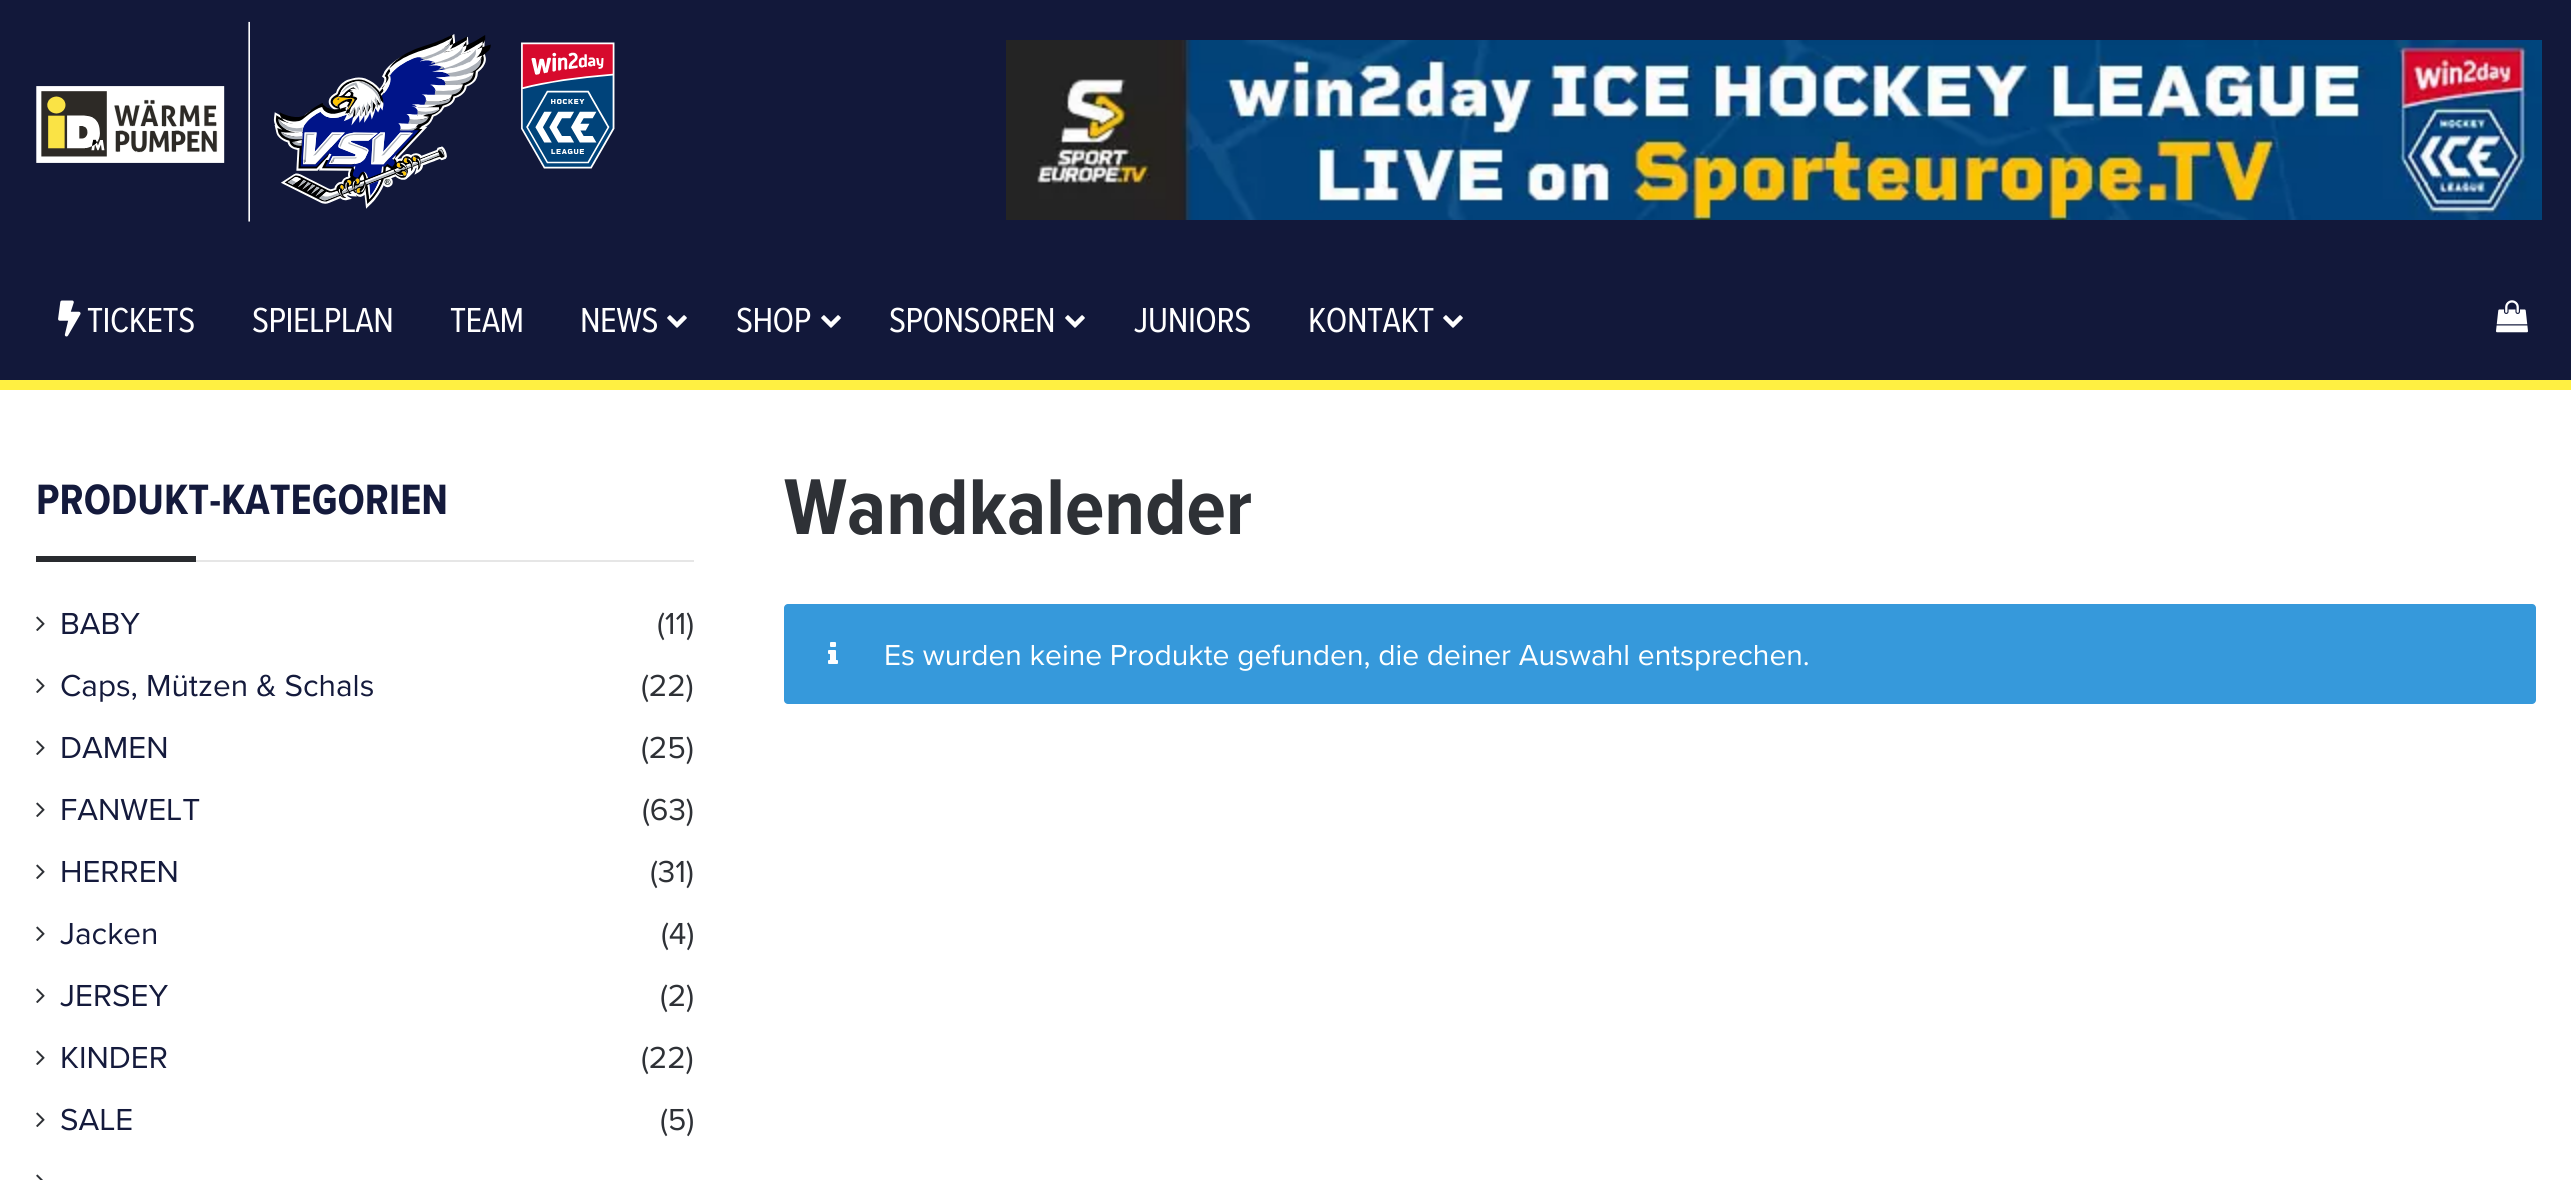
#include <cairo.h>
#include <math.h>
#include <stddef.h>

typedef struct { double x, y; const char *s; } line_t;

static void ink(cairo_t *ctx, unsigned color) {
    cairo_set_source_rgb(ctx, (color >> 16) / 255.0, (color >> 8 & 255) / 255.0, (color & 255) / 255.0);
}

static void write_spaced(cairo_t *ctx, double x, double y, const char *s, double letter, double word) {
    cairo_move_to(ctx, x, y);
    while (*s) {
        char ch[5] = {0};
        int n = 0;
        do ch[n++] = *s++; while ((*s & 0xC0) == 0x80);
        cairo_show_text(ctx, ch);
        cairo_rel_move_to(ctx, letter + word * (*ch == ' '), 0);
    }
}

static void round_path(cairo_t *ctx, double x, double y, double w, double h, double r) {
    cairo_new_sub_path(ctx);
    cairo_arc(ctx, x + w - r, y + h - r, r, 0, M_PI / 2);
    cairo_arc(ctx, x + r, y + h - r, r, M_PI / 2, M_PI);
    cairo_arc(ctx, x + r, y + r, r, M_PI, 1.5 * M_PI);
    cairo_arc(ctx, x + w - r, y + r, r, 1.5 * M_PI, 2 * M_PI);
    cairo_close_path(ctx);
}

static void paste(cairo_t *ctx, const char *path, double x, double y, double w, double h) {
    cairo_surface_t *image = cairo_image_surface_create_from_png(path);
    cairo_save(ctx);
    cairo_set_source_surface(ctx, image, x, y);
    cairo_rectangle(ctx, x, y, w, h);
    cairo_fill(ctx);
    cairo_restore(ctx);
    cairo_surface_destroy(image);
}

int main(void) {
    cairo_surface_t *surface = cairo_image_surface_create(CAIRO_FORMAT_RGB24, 2571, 1180);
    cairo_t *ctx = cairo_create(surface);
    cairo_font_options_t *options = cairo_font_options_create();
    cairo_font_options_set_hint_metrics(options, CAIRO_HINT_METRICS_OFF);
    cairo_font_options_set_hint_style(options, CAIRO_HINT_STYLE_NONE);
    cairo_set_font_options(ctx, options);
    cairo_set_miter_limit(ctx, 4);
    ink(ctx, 0xFFFFFF);
    cairo_paint(ctx);
    ink(ctx, 0x12183A);
    cairo_rectangle(ctx, 0, 0, 2571, 380);
    cairo_fill(ctx);
    paste(ctx, "media/1.png", 36, 21, 579, 201);
    paste(ctx, "media/2.png", 1006, 40, 1536, 180);
    ink(ctx, 0xFFF042);
    cairo_rectangle(ctx, 0, 380, 2571, 10);
    cairo_fill(ctx);
    paste(ctx, "media/3.png", 58, 300, 23, 37);
    cairo_select_font_face(ctx, "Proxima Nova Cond", CAIRO_FONT_SLANT_NORMAL, CAIRO_FONT_WEIGHT_NORMAL);
    cairo_set_font_size(ctx, 36);
    ink(ctx, 0xFFFFFF);
    {
        static const line_t items[] = {
            {87, 332, "TICKETS"},
            {252, 332, "SPIELPLAN"},
            {450, 332, "TEAM"},
            {580, 332, "NEWS"},
        };
        for (size_t i = 0; i < sizeof items / sizeof *items; i++) {
            write_spaced(ctx, items[i].x, items[i].y, items[i].s, -0.5, 0);
        }
    }
    paste(ctx, "media/4.png", 667, 315, 20, 13);
    write_spaced(ctx, 736, 332, "SHOP", -0.5, 0);
    paste(ctx, "media/4.png", 821, 315, 20, 13);
    write_spaced(ctx, 889, 332, "SPONSOREN", -0.5, 0);
    paste(ctx, "media/4.png", 1065, 315, 20, 13);
    write_spaced(ctx, 1134, 332, "JUNIORS", -0.5, 0);
    write_spaced(ctx, 1308, 332, "KONTAKT", -0.5, 0);
    paste(ctx, "media/4.png", 1443, 315, 20, 13);
    paste(ctx, "media/5.png", 2496, 300, 32, 33);
    ink(ctx, 0xE6E6E6);
    cairo_rectangle(ctx, 196, 560, 498, 2);
    cairo_fill(ctx);
    cairo_select_font_face(ctx, "Proxima Nova Cond", CAIRO_FONT_SLANT_NORMAL, CAIRO_FONT_WEIGHT_BOLD);
    cairo_set_font_size(ctx, 44);
    ink(ctx, 0x141A3C);
    cairo_move_to(ctx, 36, 514);
    cairo_show_text(ctx, "PRODUKT-KATEGORIEN");
    ink(ctx, 0x292B2F);
    cairo_rectangle(ctx, 36, 556, 160, 6);
    cairo_fill(ctx);
    paste(ctx, "media/6.png", 36, 616, 9, 15);
    cairo_select_font_face(ctx, "Proxima Nova", CAIRO_FONT_SLANT_NORMAL, CAIRO_FONT_WEIGHT_NORMAL);
    cairo_set_font_size(ctx, 31.5);
    ink(ctx, 0x141A3C);
    cairo_move_to(ctx, 60, 634);
    cairo_show_text(ctx, "BABY");
    ink(ctx, 0x2E3136);
    cairo_move_to(ctx, 657, 634);
    cairo_show_text(ctx, "(11)");
    paste(ctx, "media/6.png", 36, 678, 9, 15);
    ink(ctx, 0x141A3C);
    cairo_move_to(ctx, 60, 696);
    cairo_show_text(ctx, "Caps, Mützen & Schals");
    ink(ctx, 0x2E3136);
    cairo_move_to(ctx, 641, 696);
    cairo_show_text(ctx, "(22)");
    paste(ctx, "media/6.png", 36, 740, 9, 15);
    ink(ctx, 0x141A3C);
    cairo_move_to(ctx, 60, 758);
    cairo_show_text(ctx, "DAMEN");
    ink(ctx, 0x2E3136);
    cairo_move_to(ctx, 641, 758);
    cairo_show_text(ctx, "(25)");
    paste(ctx, "media/6.png", 36, 802, 9, 15);
    ink(ctx, 0x141A3C);
    cairo_move_to(ctx, 60, 820);
    cairo_show_text(ctx, "FANWELT");
    ink(ctx, 0x2E3136);
    cairo_move_to(ctx, 642, 820);
    cairo_show_text(ctx, "(63)");
    paste(ctx, "media/6.png", 36, 864, 9, 15);
    ink(ctx, 0x141A3C);
    cairo_move_to(ctx, 60, 882);
    cairo_show_text(ctx, "HERREN");
    ink(ctx, 0x2E3136);
    cairo_move_to(ctx, 650, 882);
    cairo_show_text(ctx, "(31)");
    paste(ctx, "media/6.png", 36, 926, 9, 15);
    ink(ctx, 0x141A3C);
    cairo_move_to(ctx, 60, 944);
    cairo_show_text(ctx, "Jacken");
    ink(ctx, 0x2E3136);
    cairo_move_to(ctx, 661, 944);
    cairo_show_text(ctx, "(4)");
    paste(ctx, "media/6.png", 36, 988, 9, 15);
    ink(ctx, 0x141A3C);
    cairo_move_to(ctx, 60, 1006);
    cairo_show_text(ctx, "JERSEY");
    ink(ctx, 0x2E3136);
    cairo_move_to(ctx, 660, 1006);
    cairo_show_text(ctx, "(2)");
    paste(ctx, "media/6.png", 36, 1050, 9, 15);
    ink(ctx, 0x141A3C);
    cairo_move_to(ctx, 60, 1068);
    cairo_show_text(ctx, "KINDER");
    ink(ctx, 0x2E3136);
    cairo_move_to(ctx, 641, 1068);
    cairo_show_text(ctx, "(22)");
    paste(ctx, "media/6.png", 36, 1112, 9, 15);
    ink(ctx, 0x141A3C);
    cairo_move_to(ctx, 60, 1130);
    cairo_show_text(ctx, "SALE");
    ink(ctx, 0x2E3136);
    cairo_move_to(ctx, 660, 1130);
    cairo_show_text(ctx, "(5)");
    paste(ctx, "media/7.png", 36, 1174, 7, 6);
    cairo_select_font_face(ctx, "Proxima Nova Cond", CAIRO_FONT_SLANT_NORMAL, CAIRO_FONT_WEIGHT_BOLD);
    cairo_set_font_size(ctx, 82);
    cairo_move_to(ctx, 784, 534);
    cairo_show_text(ctx, "Wandkalender");
    ink(ctx, 0x3699DB);
    round_path(ctx, 784, 604, 1752, 100, 4);
    cairo_fill(ctx);
    paste(ctx, "media/8.png", 828, 642, 10, 22);
    cairo_select_font_face(ctx, "Proxima Nova", CAIRO_FONT_SLANT_NORMAL, CAIRO_FONT_WEIGHT_NORMAL);
    cairo_set_font_size(ctx, 30);
    ink(ctx, 0xFFFFFF);
    cairo_move_to(ctx, 884, 665);
    cairo_show_text(ctx, "Es wurden keine Produkte gefunden, die deiner Auswahl entsprechen.");
    cairo_surface_write_to_png(surface, "image.png");
    cairo_font_options_destroy(options);
    cairo_destroy(ctx);
    cairo_surface_destroy(surface);
    return 0;
}
